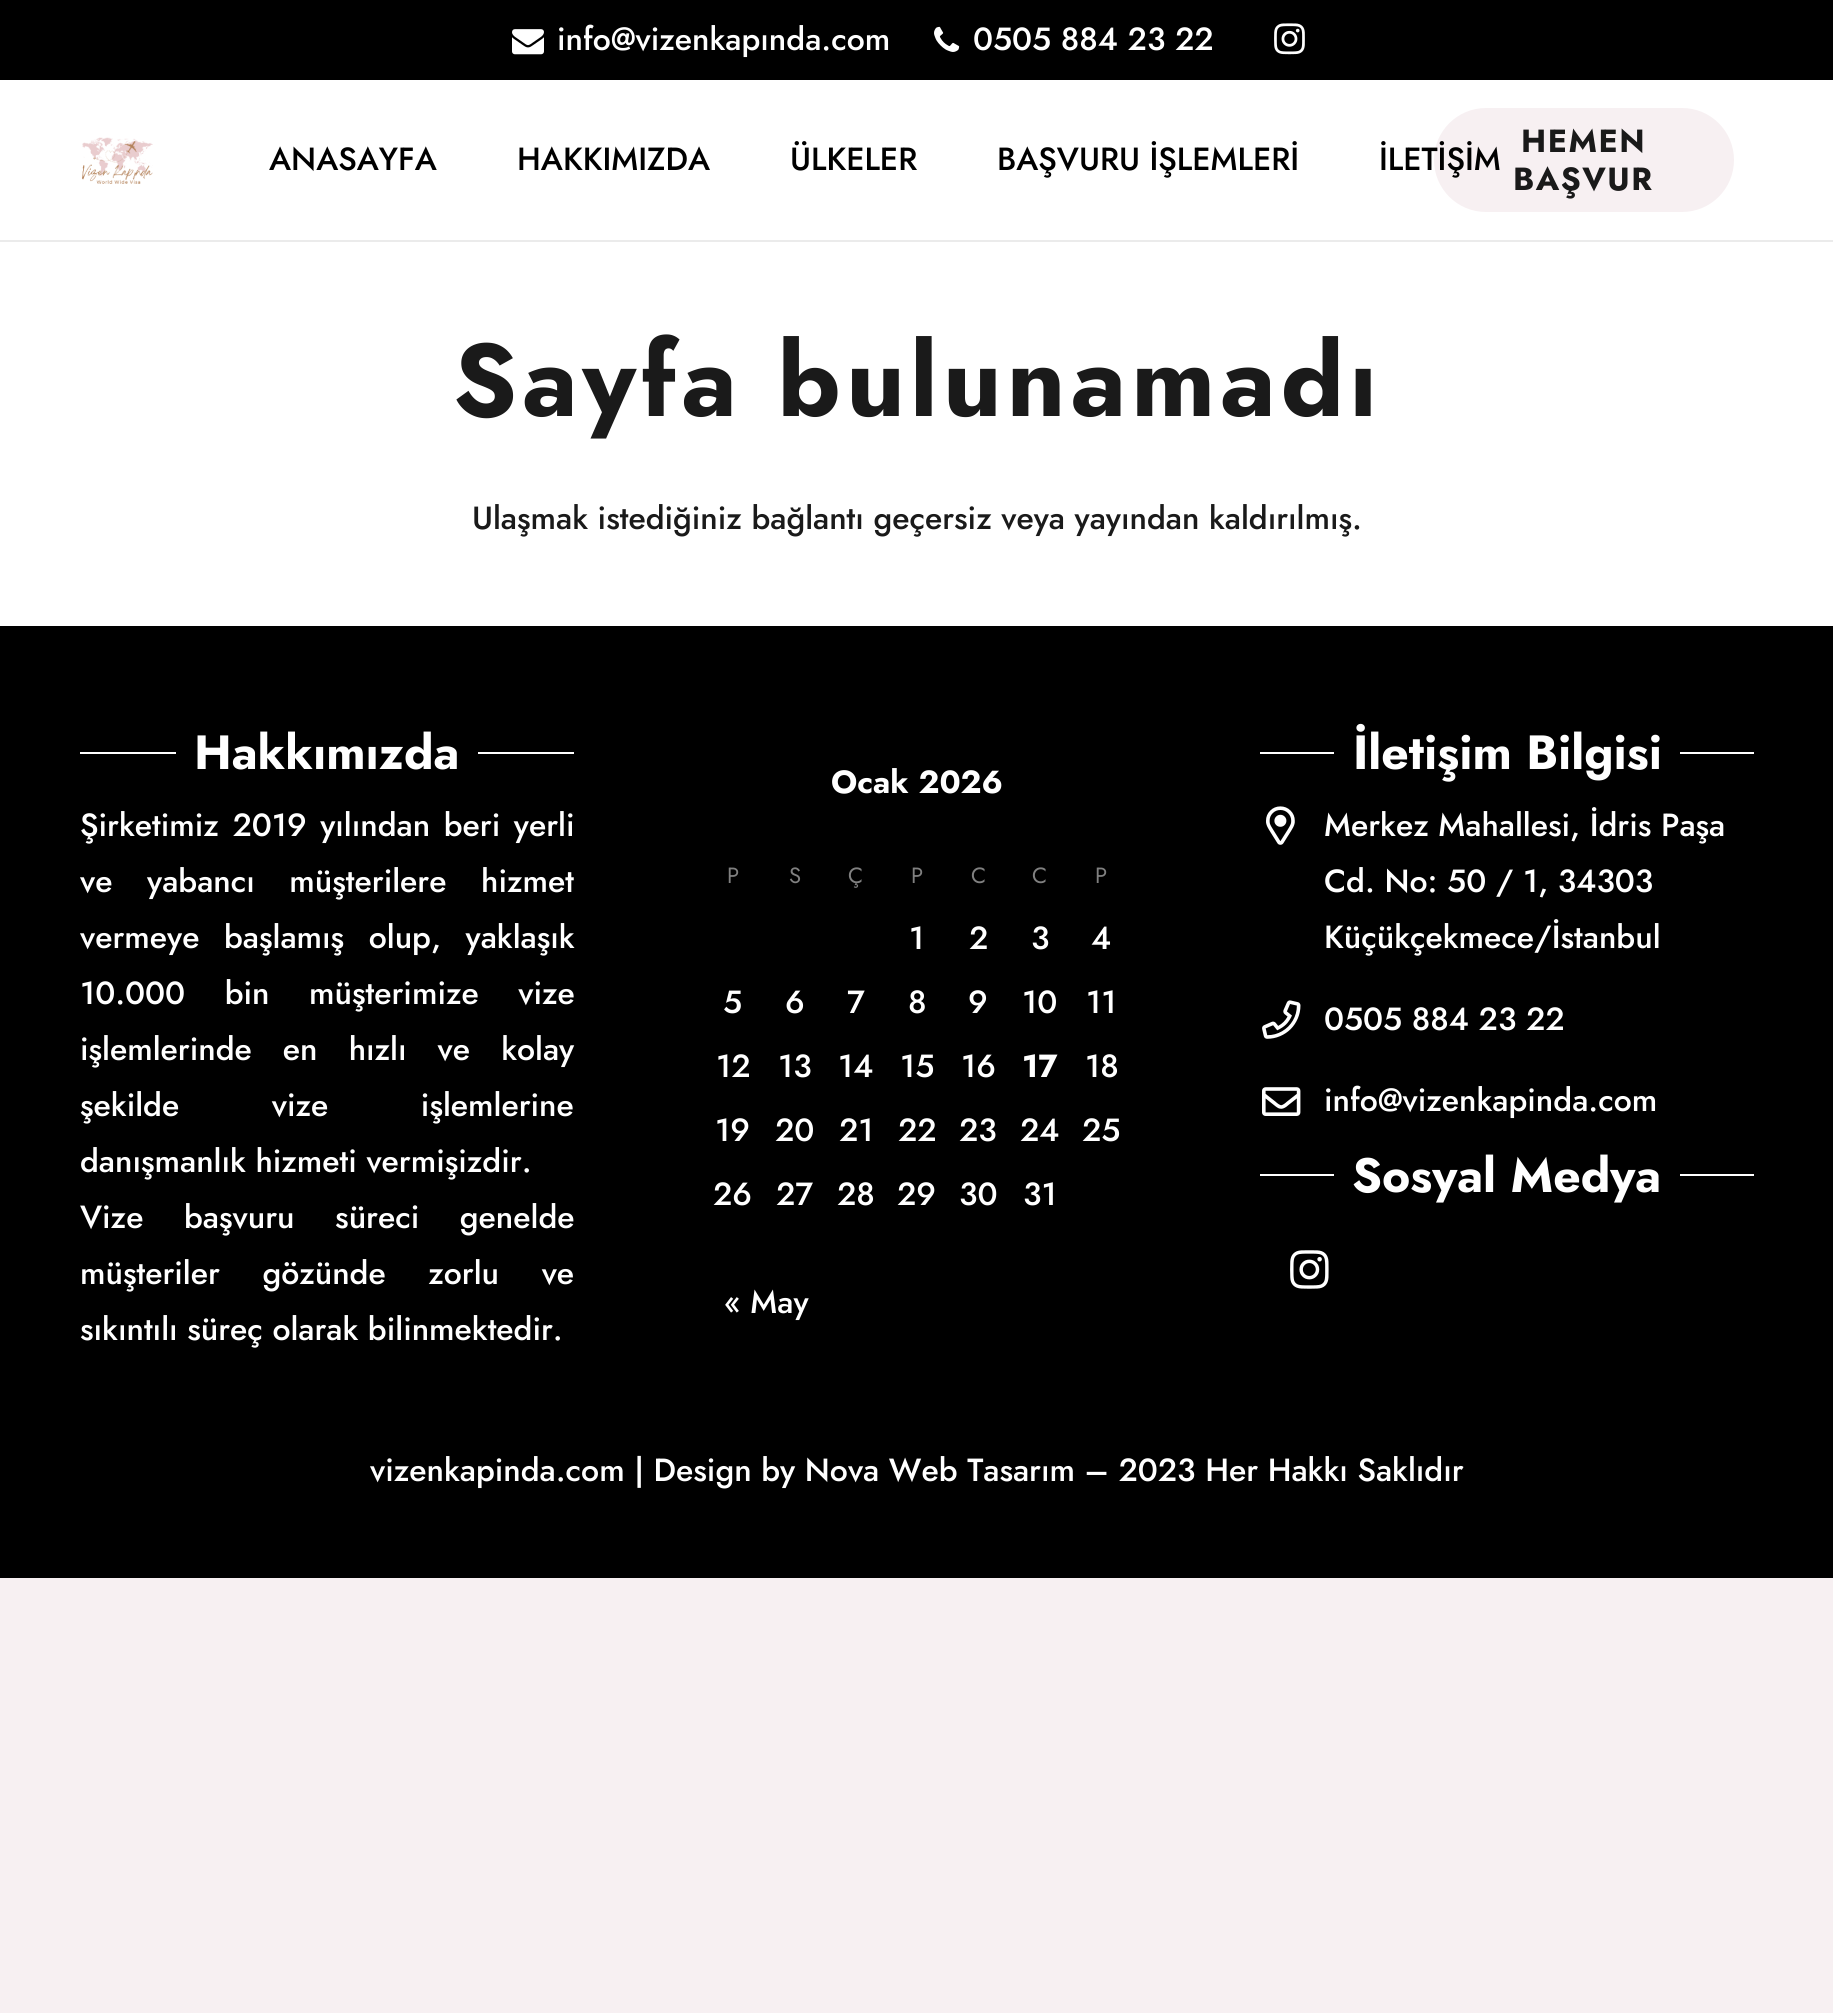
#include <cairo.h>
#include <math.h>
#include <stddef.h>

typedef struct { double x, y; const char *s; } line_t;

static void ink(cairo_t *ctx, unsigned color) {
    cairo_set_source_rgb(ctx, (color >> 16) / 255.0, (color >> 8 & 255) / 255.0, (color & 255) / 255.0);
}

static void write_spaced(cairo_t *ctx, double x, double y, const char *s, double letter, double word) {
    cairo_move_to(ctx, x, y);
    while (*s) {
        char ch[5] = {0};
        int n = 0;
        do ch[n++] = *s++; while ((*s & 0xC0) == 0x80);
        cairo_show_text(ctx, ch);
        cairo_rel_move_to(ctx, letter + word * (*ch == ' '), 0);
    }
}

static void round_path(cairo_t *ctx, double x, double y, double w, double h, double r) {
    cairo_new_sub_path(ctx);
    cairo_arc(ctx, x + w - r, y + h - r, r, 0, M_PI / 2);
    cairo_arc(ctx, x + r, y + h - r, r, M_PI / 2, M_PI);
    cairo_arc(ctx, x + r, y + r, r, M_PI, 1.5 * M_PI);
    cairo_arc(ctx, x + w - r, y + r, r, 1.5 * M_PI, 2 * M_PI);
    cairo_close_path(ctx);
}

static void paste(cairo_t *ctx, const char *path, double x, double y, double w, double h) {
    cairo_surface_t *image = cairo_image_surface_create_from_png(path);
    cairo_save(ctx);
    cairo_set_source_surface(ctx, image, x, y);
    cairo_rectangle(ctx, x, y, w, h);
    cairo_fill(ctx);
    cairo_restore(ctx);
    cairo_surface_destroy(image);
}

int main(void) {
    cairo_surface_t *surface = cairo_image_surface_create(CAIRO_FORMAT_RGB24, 1833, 2013);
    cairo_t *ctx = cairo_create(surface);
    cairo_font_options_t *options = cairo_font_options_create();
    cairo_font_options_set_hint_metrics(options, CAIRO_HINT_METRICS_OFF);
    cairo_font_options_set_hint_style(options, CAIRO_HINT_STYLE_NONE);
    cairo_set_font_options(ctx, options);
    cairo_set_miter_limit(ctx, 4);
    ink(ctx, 0xF7F0F2);
    cairo_paint(ctx);
    ink(ctx, 0xFFFFFF);
    cairo_rectangle(ctx, 0, 80, 1833, 546);
    cairo_fill(ctx);
    ink(ctx, 0x000000);
    cairo_rectangle(ctx, 0, 0, 1833, 80);
    cairo_fill(ctx);
    paste(ctx, "media/1.png", 512, 29, 32, 26);
    cairo_select_font_face(ctx, "Jost Medium", CAIRO_FONT_SLANT_NORMAL, CAIRO_FONT_WEIGHT_NORMAL);
    cairo_set_font_size(ctx, 32);
    ink(ctx, 0xFFFFFF);
    cairo_move_to(ctx, 557, 50);
    cairo_show_text(ctx, "info@vizenkapında.com");
    paste(ctx, "media/2.png", 934, 26, 26, 26);
    cairo_move_to(ctx, 973, 50);
    cairo_show_text(ctx, "0505 884 23 22");
    paste(ctx, "media/3.png", 1274, 23, 31, 32);
    ink(ctx, 0xEBEBEB);
    cairo_rectangle(ctx, 0, 240, 1833, 2);
    cairo_fill(ctx);
    paste(ctx, "media/4.png", 82, 137, 71, 47);
    ink(ctx, 0x000000);
    {
        static const line_t items[] = {
            {269, 170, "ANASAYFA"},
            {517, 170, "HAKKIMIZDA"},
            {790, 170, "ÜLKELER"},
            {997, 170, "BAŞVURU İŞLEMLERİ"},
        };
        for (size_t i = 0; i < sizeof items / sizeof *items; i++) {
            cairo_move_to(ctx, items[i].x, items[i].y);
            cairo_show_text(ctx, items[i].s);
        }
    }
    ink(ctx, 0xF7F0F2);
    round_path(ctx, 1434, 108, 300, 104, 52);
    cairo_fill(ctx);
    ink(ctx, 0x000000);
    cairo_move_to(ctx, 1379, 170);
    cairo_show_text(ctx, "İLETİŞİM");
    cairo_select_font_face(ctx, "Jost", CAIRO_FONT_SLANT_NORMAL, CAIRO_FONT_WEIGHT_BOLD);
    ink(ctx, 0x1A1A1A);
    write_spaced(ctx, 1521, 152, "HEMEN", 1.5, 0);
    write_spaced(ctx, 1513, 190, "BAŞVUR", 1.5, 0);
    cairo_set_font_size(ctx, 102.5);
    write_spaced(ctx, 453, 416, "Sayfa bulunamadı", 5.1, 0);
    cairo_select_font_face(ctx, "Jost Medium", CAIRO_FONT_SLANT_NORMAL, CAIRO_FONT_WEIGHT_NORMAL);
    cairo_set_font_size(ctx, 32);
    cairo_move_to(ctx, 472, 529);
    cairo_show_text(ctx, "Ulaşmak istediğiniz bağlantı geçersiz veya yayından kaldırılmış.");
    ink(ctx, 0x000000);
    cairo_rectangle(ctx, 0, 626, 1833, 952);
    cairo_fill(ctx);
    ink(ctx, 0xFFFFFF);
    cairo_rectangle(ctx, 80, 752, 96, 2);
    cairo_fill(ctx);
    cairo_select_font_face(ctx, "Jost", CAIRO_FONT_SLANT_NORMAL, CAIRO_FONT_WEIGHT_BOLD);
    cairo_set_font_size(ctx, 48);
    cairo_move_to(ctx, 194, 769);
    cairo_show_text(ctx, "Hakkımızda");
    cairo_rectangle(ctx, 478, 752, 96, 2);
    cairo_fill(ctx);
    cairo_select_font_face(ctx, "Jost Medium", CAIRO_FONT_SLANT_NORMAL, CAIRO_FONT_WEIGHT_NORMAL);
    cairo_set_font_size(ctx, 32);
    write_spaced(ctx, 80, 836, "Şirketimiz 2019 yılından beri yerli", 0, 4);
    write_spaced(ctx, 80, 892, "ve yabancı müşterilere hizmet", 0, 25);
    write_spaced(ctx, 80, 948, "vermeye başlamış olup, yaklaşık", 0, 15);
    write_spaced(ctx, 80, 1004, "10.000 bin müşterimize vize", 0, 30);
    write_spaced(ctx, 80, 1060, "işlemlerinde en hızlı ve kolay", 0, 21.5);
    write_spaced(ctx, 80, 1116, "şekilde vize işlemlerine", 0, 83);
    cairo_move_to(ctx, 80, 1172);
    cairo_show_text(ctx, "danışmanlık hizmeti vermişizdir.");
    write_spaced(ctx, 80, 1228, "Vize başvuru süreci genelde", 0, 31);
    write_spaced(ctx, 80, 1284, "müşteriler gözünde zorlu ve", 0, 33);
    cairo_move_to(ctx, 80, 1340);
    cairo_show_text(ctx, "sıkıntılı süreç olarak bilinmektedir.");
    cairo_select_font_face(ctx, "Jost", CAIRO_FONT_SLANT_NORMAL, CAIRO_FONT_WEIGHT_BOLD);
    cairo_move_to(ctx, 831, 793);
    cairo_show_text(ctx, "Ocak 2026");
    cairo_select_font_face(ctx, "Jost", CAIRO_FONT_SLANT_NORMAL, CAIRO_FONT_WEIGHT_NORMAL);
    cairo_set_font_size(ctx, 22);
    ink(ctx, 0x808080);
    {
        static const line_t items[] = {
            {727, 883, "P"},
            {789, 883, "S"},
            {848, 883, "Ç"},
            {911, 883, "P"},
            {971, 883, "C"},
            {1032, 883, "C"},
            {1095, 883, "P"},
        };
        for (size_t i = 0; i < sizeof items / sizeof *items; i++) {
            cairo_move_to(ctx, items[i].x, items[i].y);
            cairo_show_text(ctx, items[i].s);
        }
    }
    cairo_select_font_face(ctx, "Jost Medium", CAIRO_FONT_SLANT_NORMAL, CAIRO_FONT_WEIGHT_NORMAL);
    cairo_set_font_size(ctx, 32);
    ink(ctx, 0xFFFFFF);
    {
        static const line_t items[] = {
            {909, 949, "1"},
            {969, 949, "2"},
            {1031, 949, "3"},
            {1091, 949, "4"},
            {723, 1013, "5"},
            {785, 1013, "6"},
            {847, 1013, "7"},
            {908, 1013, "8"},
            {968, 1013, "9"},
            {1022, 1013, "10"},
            {1086, 1013, "11"},
            {716, 1077, "12"},
            {778, 1077, "13"},
            {838, 1077, "14"},
            {900, 1077, "15"},
            {961, 1077, "16"},
        };
        for (size_t i = 0; i < sizeof items / sizeof *items; i++) {
            cairo_move_to(ctx, items[i].x, items[i].y);
            cairo_show_text(ctx, items[i].s);
        }
    }
    cairo_select_font_face(ctx, "Jost", CAIRO_FONT_SLANT_NORMAL, CAIRO_FONT_WEIGHT_BOLD);
    cairo_move_to(ctx, 1022, 1077);
    cairo_show_text(ctx, "17");
    cairo_select_font_face(ctx, "Jost Medium", CAIRO_FONT_SLANT_NORMAL, CAIRO_FONT_WEIGHT_NORMAL);
    {
        static const line_t items[] = {
            {1085, 1077, "18"},
            {715, 1141, "19"},
            {775, 1141, "20"},
            {839, 1141, "21"},
            {898, 1141, "22"},
            {959, 1141, "23"},
            {1020, 1141, "24"},
            {1082, 1141, "25"},
            {713, 1205, "26"},
            {776, 1205, "27"},
            {837, 1205, "28"},
            {897, 1205, "29"},
            {959, 1205, "30"},
            {1023, 1205, "31"},
            {724, 1313, "« May"},
        };
        for (size_t i = 0; i < sizeof items / sizeof *items; i++) {
            cairo_move_to(ctx, items[i].x, items[i].y);
            cairo_show_text(ctx, items[i].s);
        }
    }
    cairo_rectangle(ctx, 1260, 752, 74, 2);
    cairo_fill(ctx);
    cairo_select_font_face(ctx, "Jost", CAIRO_FONT_SLANT_NORMAL, CAIRO_FONT_WEIGHT_BOLD);
    cairo_set_font_size(ctx, 48);
    cairo_move_to(ctx, 1353, 769);
    cairo_show_text(ctx, "İletişim Bilgisi");
    cairo_rectangle(ctx, 1680, 752, 74, 2);
    cairo_fill(ctx);
    paste(ctx, "media/5.png", 1266, 806, 29, 39);
    cairo_select_font_face(ctx, "Jost Medium", CAIRO_FONT_SLANT_NORMAL, CAIRO_FONT_WEIGHT_NORMAL);
    cairo_set_font_size(ctx, 32);
    {
        static const line_t items[] = {
            {1324, 836, "Merkez Mahallesi, İdris Paşa"},
            {1324, 892, "Cd. No: 50 / 1, 34303"},
            {1324, 948, "Küçükçekmece/İstanbul"},
        };
        for (size_t i = 0; i < sizeof items / sizeof *items; i++) {
            cairo_move_to(ctx, items[i].x, items[i].y);
            cairo_show_text(ctx, items[i].s);
        }
    }
    paste(ctx, "media/6.png", 1262, 1000, 39, 39);
    cairo_move_to(ctx, 1324, 1030);
    cairo_show_text(ctx, "0505 884 23 22");
    paste(ctx, "media/7.png", 1262, 1087, 39, 29);
    cairo_move_to(ctx, 1324, 1111);
    cairo_show_text(ctx, "info@vizenkapinda.com");
    cairo_rectangle(ctx, 1260, 1174, 74, 2);
    cairo_fill(ctx);
    cairo_select_font_face(ctx, "Jost", CAIRO_FONT_SLANT_NORMAL, CAIRO_FONT_WEIGHT_BOLD);
    cairo_set_font_size(ctx, 48);
    cairo_move_to(ctx, 1352, 1192);
    cairo_show_text(ctx, "Sosyal Medya");
    cairo_rectangle(ctx, 1680, 1174, 74, 2);
    cairo_fill(ctx);
    paste(ctx, "media/8.png", 1290, 1250, 39, 39);
    cairo_select_font_face(ctx, "Jost Medium", CAIRO_FONT_SLANT_NORMAL, CAIRO_FONT_WEIGHT_NORMAL);
    cairo_set_font_size(ctx, 32);
    cairo_move_to(ctx, 370, 1481);
    cairo_show_text(ctx, "vizenkapinda.com | Design by Nova Web Tasarım – 2023 Her Hakkı Saklıdır");
    cairo_surface_write_to_png(surface, "image.png");
    cairo_font_options_destroy(options);
    cairo_destroy(ctx);
    cairo_surface_destroy(surface);
    return 0;
}
